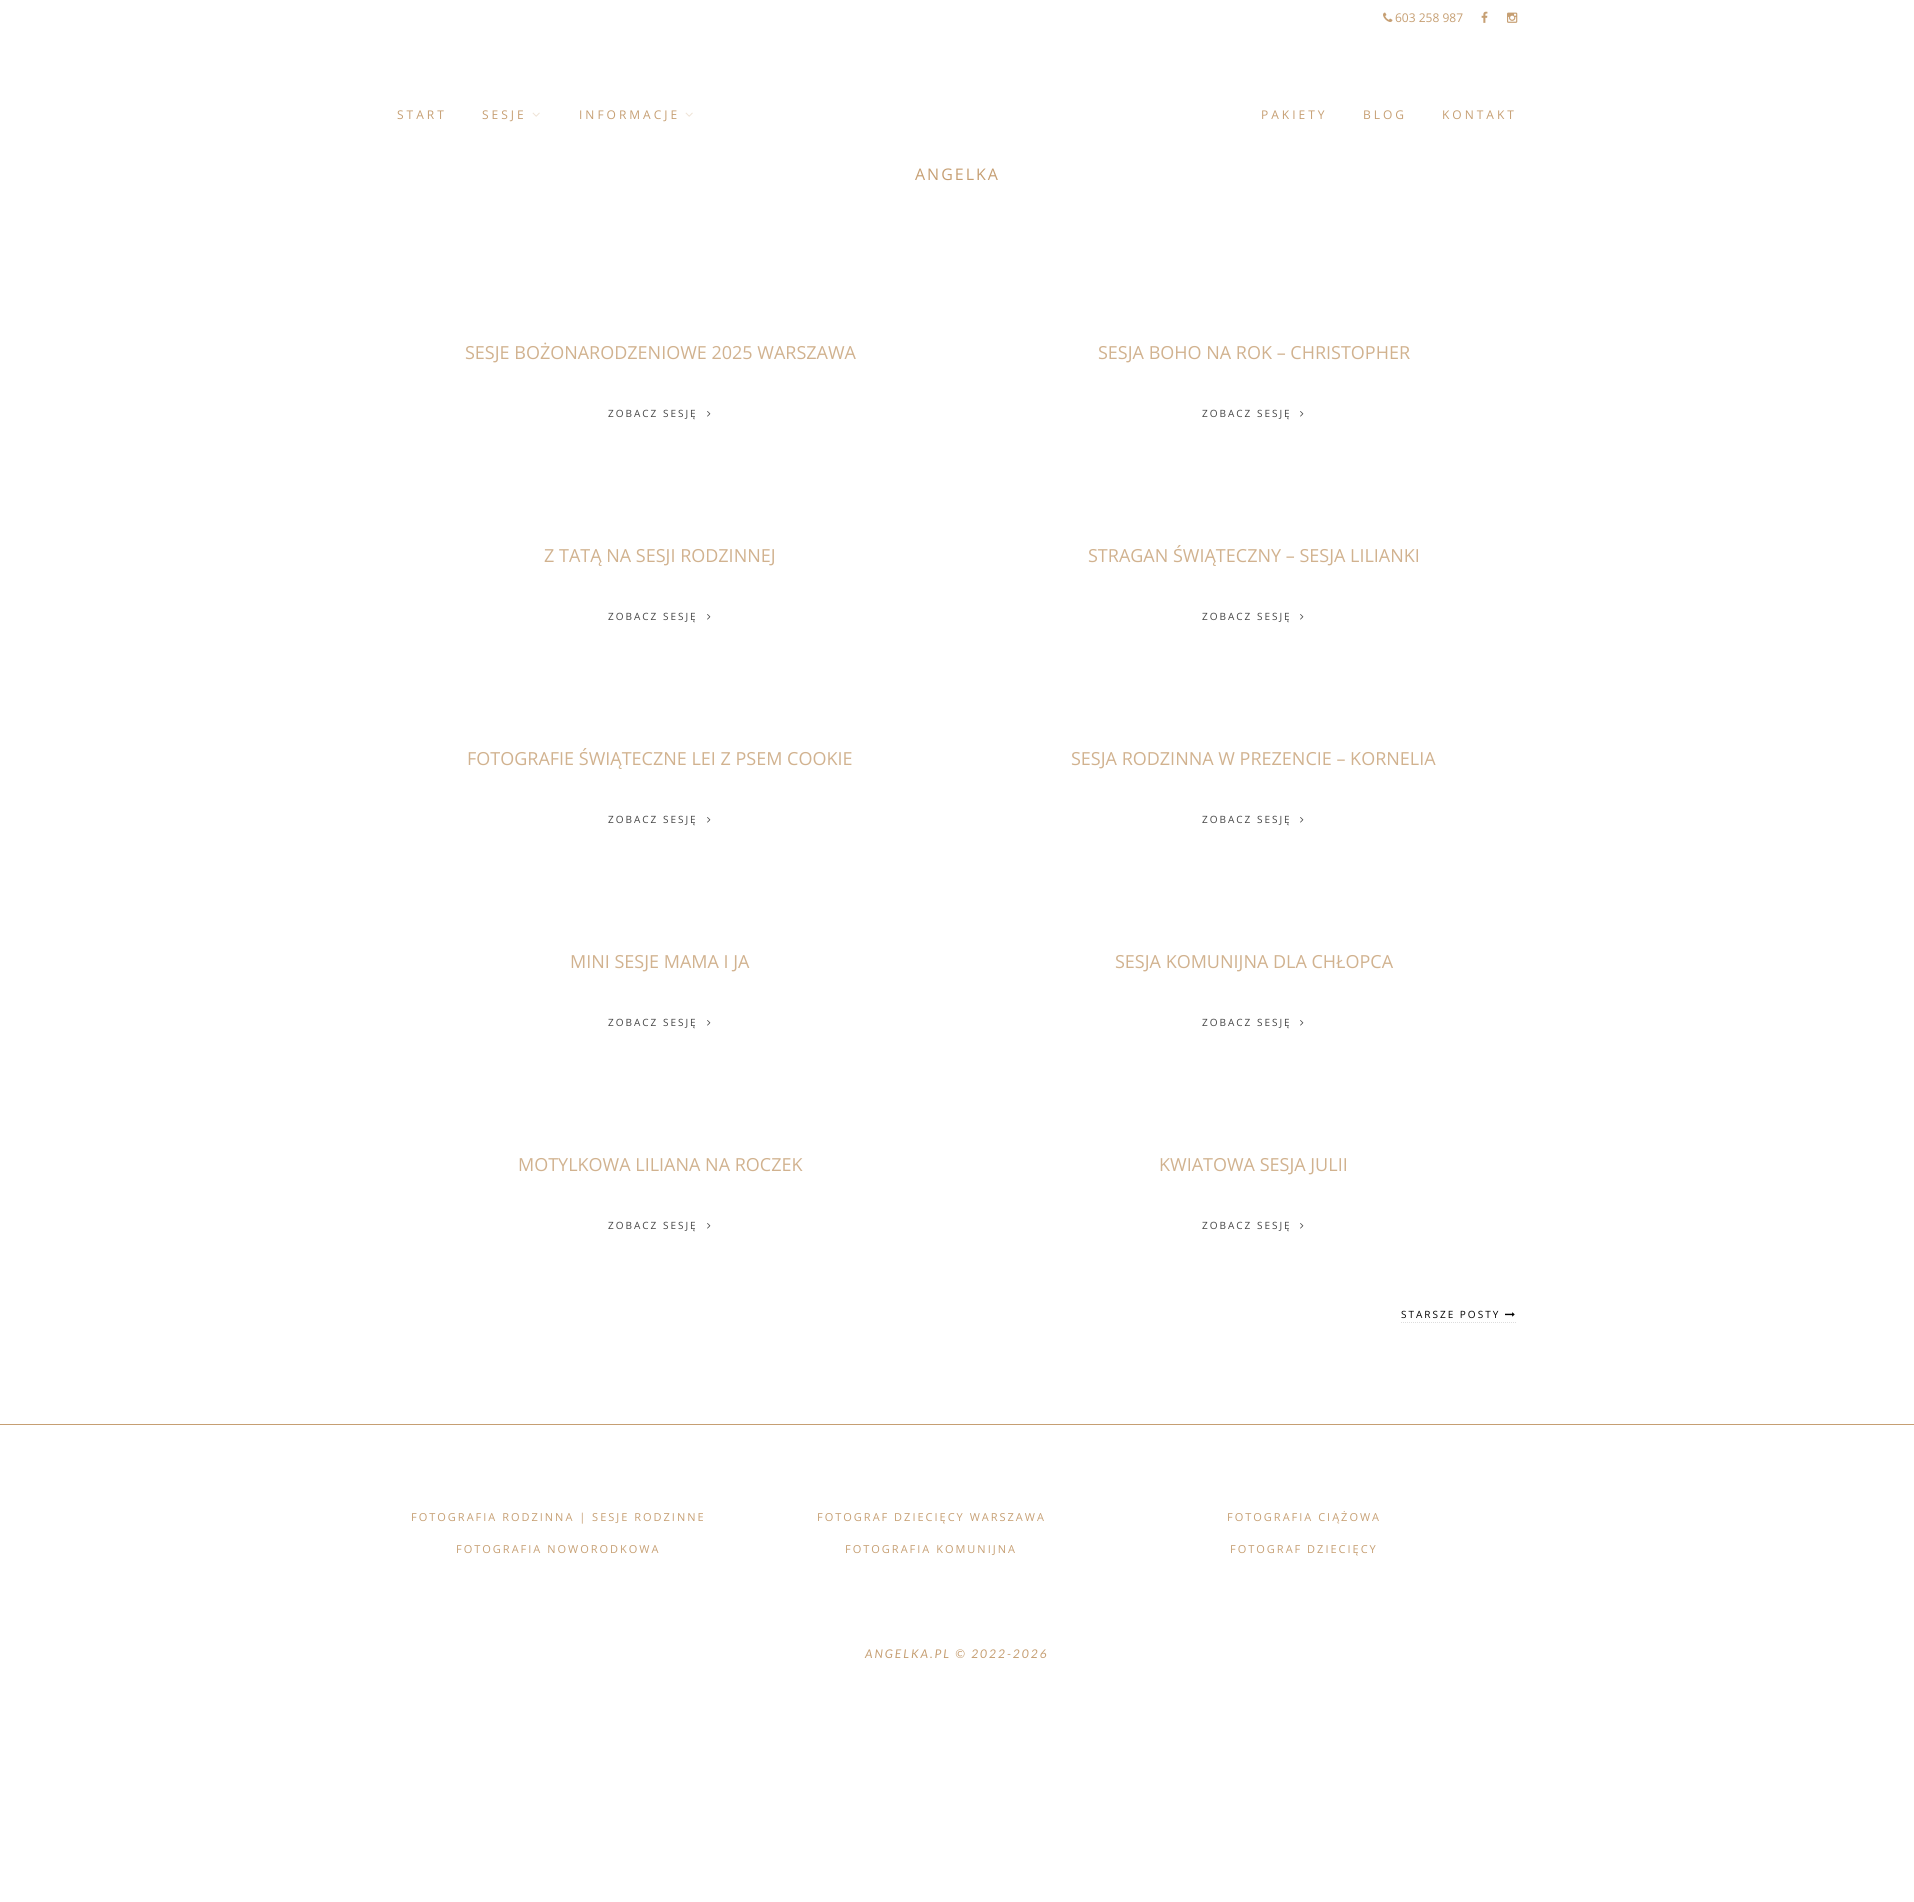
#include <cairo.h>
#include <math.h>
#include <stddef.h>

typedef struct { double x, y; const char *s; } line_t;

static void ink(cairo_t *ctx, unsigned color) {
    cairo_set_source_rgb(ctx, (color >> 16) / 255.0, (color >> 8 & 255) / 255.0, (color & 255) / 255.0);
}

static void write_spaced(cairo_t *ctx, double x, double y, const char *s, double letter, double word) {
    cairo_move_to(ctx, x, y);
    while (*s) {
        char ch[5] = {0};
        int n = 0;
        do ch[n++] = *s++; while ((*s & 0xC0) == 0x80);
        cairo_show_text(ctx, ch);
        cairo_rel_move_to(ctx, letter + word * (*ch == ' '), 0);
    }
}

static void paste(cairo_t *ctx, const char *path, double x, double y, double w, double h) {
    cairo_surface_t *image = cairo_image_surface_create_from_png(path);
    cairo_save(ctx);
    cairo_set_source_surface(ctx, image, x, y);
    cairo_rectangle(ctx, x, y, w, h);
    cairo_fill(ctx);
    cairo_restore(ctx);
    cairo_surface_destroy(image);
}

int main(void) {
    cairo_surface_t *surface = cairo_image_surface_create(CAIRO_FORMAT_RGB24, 1914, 1902);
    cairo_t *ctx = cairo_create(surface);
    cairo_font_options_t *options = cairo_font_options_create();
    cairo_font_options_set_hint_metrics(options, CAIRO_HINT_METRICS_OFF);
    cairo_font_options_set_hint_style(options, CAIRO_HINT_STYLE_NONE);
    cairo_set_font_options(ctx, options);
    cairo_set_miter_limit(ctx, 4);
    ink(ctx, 0xFFFFFF);
    cairo_paint(ctx);
    paste(ctx, "media/1.png", 1383, 12, 10, 10);
    cairo_select_font_face(ctx, "Open Sans", CAIRO_FONT_SLANT_NORMAL, CAIRO_FONT_WEIGHT_NORMAL);
    cairo_set_font_size(ctx, 12);
    ink(ctx, 0xC69F73);
    cairo_move_to(ctx, 1395, 22);
    cairo_show_text(ctx, "603 258 987");
    paste(ctx, "media/2.png", 1481, 11, 7, 12);
    paste(ctx, "media/3.png", 1507, 12, 11, 11);
    write_spaced(ctx, 397, 119, "START", 3, 0);
    write_spaced(ctx, 482, 119, "SESJE", 3, 0);
    paste(ctx, "media/4.png", 532, 112, 8, 5);
    write_spaced(ctx, 579, 119, "INFORMACJE", 3, 0);
    paste(ctx, "media/4.png", 685, 112, 8, 5);
    {
        static const line_t items[] = {
            {1261, 119, "PAKIETY"},
            {1363, 119, "BLOG"},
            {1442, 119, "KONTAKT"},
        };
        for (size_t i = 0; i < sizeof items / sizeof *items; i++) {
            write_spaced(ctx, items[i].x, items[i].y, items[i].s, 3, 0);
        }
    }
    cairo_set_font_size(ctx, 16);
    write_spaced(ctx, 915, 180, "ANGELKA", 2, 0);
    cairo_set_font_size(ctx, 18);
    ink(ctx, 0xD1B28F);
    cairo_move_to(ctx, 465, 359);
    cairo_show_text(ctx, "SESJE BOŻONARODZENIOWE 2025 WARSZAWA");
    cairo_set_font_size(ctx, 10);
    ink(ctx, 0x444444);
    write_spaced(ctx, 608, 417, "ZOBACZ SESJĘ", 2, 0);
    paste(ctx, "media/5.png", 707, 411, 4, 6);
    cairo_set_font_size(ctx, 18);
    ink(ctx, 0xD1B28F);
    cairo_move_to(ctx, 1098, 359);
    cairo_show_text(ctx, "SESJA BOHO NA ROK – CHRISTOPHER");
    cairo_set_font_size(ctx, 10);
    ink(ctx, 0x444444);
    write_spaced(ctx, 1202, 417, "ZOBACZ SESJĘ", 2, 0);
    paste(ctx, "media/5.png", 1300, 411, 4, 6);
    cairo_set_font_size(ctx, 18);
    ink(ctx, 0xD1B28F);
    cairo_move_to(ctx, 544, 562);
    cairo_show_text(ctx, "Z TATĄ NA SESJI RODZINNEJ");
    cairo_set_font_size(ctx, 10);
    ink(ctx, 0x444444);
    write_spaced(ctx, 608, 620, "ZOBACZ SESJĘ", 2, 0);
    paste(ctx, "media/5.png", 707, 614, 4, 6);
    cairo_set_font_size(ctx, 18);
    ink(ctx, 0xD1B28F);
    cairo_move_to(ctx, 1088, 562);
    cairo_show_text(ctx, "STRAGAN ŚWIĄTECZNY – SESJA LILIANKI");
    cairo_set_font_size(ctx, 10);
    ink(ctx, 0x444444);
    write_spaced(ctx, 1202, 620, "ZOBACZ SESJĘ", 2, 0);
    paste(ctx, "media/5.png", 1300, 614, 4, 6);
    cairo_set_font_size(ctx, 18);
    ink(ctx, 0xD1B28F);
    cairo_move_to(ctx, 467, 765);
    cairo_show_text(ctx, "FOTOGRAFIE ŚWIĄTECZNE LEI Z PSEM COOKIE");
    cairo_set_font_size(ctx, 10);
    ink(ctx, 0x444444);
    write_spaced(ctx, 608, 823, "ZOBACZ SESJĘ", 2, 0);
    paste(ctx, "media/5.png", 707, 817, 4, 6);
    cairo_set_font_size(ctx, 18);
    ink(ctx, 0xD1B28F);
    cairo_move_to(ctx, 1071, 765);
    cairo_show_text(ctx, "SESJA RODZINNA W PREZENCIE – KORNELIA");
    cairo_set_font_size(ctx, 10);
    ink(ctx, 0x444444);
    write_spaced(ctx, 1202, 823, "ZOBACZ SESJĘ", 2, 0);
    paste(ctx, "media/5.png", 1300, 817, 4, 6);
    cairo_set_font_size(ctx, 18);
    ink(ctx, 0xD1B28F);
    cairo_move_to(ctx, 570, 968);
    cairo_show_text(ctx, "MINI SESJE MAMA I JA");
    cairo_set_font_size(ctx, 10);
    ink(ctx, 0x444444);
    write_spaced(ctx, 608, 1026, "ZOBACZ SESJĘ", 2, 0);
    paste(ctx, "media/5.png", 707, 1020, 4, 6);
    cairo_set_font_size(ctx, 18);
    ink(ctx, 0xD1B28F);
    cairo_move_to(ctx, 1115, 968);
    cairo_show_text(ctx, "SESJA KOMUNIJNA DLA CHŁOPCA");
    cairo_set_font_size(ctx, 10);
    ink(ctx, 0x444444);
    write_spaced(ctx, 1202, 1026, "ZOBACZ SESJĘ", 2, 0);
    paste(ctx, "media/5.png", 1300, 1020, 4, 6);
    cairo_set_font_size(ctx, 18);
    ink(ctx, 0xD1B28F);
    cairo_move_to(ctx, 518, 1171);
    cairo_show_text(ctx, "MOTYLKOWA LILIANA NA ROCZEK");
    cairo_set_font_size(ctx, 10);
    ink(ctx, 0x444444);
    write_spaced(ctx, 608, 1229, "ZOBACZ SESJĘ", 2, 0);
    paste(ctx, "media/5.png", 707, 1223, 4, 6);
    cairo_set_font_size(ctx, 18);
    ink(ctx, 0xD1B28F);
    cairo_move_to(ctx, 1159, 1171);
    cairo_show_text(ctx, "KWIATOWA SESJA JULII");
    cairo_set_font_size(ctx, 10);
    ink(ctx, 0x444444);
    write_spaced(ctx, 1202, 1229, "ZOBACZ SESJĘ", 2, 0);
    paste(ctx, "media/5.png", 1300, 1223, 4, 6);
    cairo_new_path(ctx);
    cairo_move_to(ctx, 1401, 1322.5);
    cairo_line_to(ctx, 1517, 1322.5);
    ink(ctx, 0xDDDDDD);
    cairo_set_line_width(ctx, 1);
    cairo_set_dash(ctx, (double[]){1, 1}, 2, 0);
    cairo_stroke(ctx);
    ink(ctx, 0x000000);
    write_spaced(ctx, 1401, 1318, "STARSZE POSTY", 2, 0);
    paste(ctx, "media/6.png", 1505, 1312, 10, 5);
    ink(ctx, 0xC69F73);
    cairo_rectangle(ctx, 0, 1424, 1914, 1);
    cairo_fill(ctx);
    cairo_set_font_size(ctx, 11);
    {
        static const line_t items[] = {
            {411, 1521, "FOTOGRAFIA RODZINNA | SESJE RODZINNE"},
            {456, 1553, "FOTOGRAFIA NOWORODKOWA"},
            {817, 1521, "FOTOGRAF DZIECIĘCY WARSZAWA"},
            {845, 1553, "FOTOGRAFIA KOMUNIJNA"},
            {1227, 1521, "FOTOGRAFIA CIĄŻOWA"},
            {1230, 1553, "FOTOGRAF DZIECIĘCY"},
        };
        for (size_t i = 0; i < sizeof items / sizeof *items; i++) {
            write_spaced(ctx, items[i].x, items[i].y, items[i].s, 2, 0);
        }
    }
    cairo_select_font_face(ctx, "Lato", CAIRO_FONT_SLANT_ITALIC, CAIRO_FONT_WEIGHT_NORMAL);
    cairo_set_font_size(ctx, 12);
    write_spaced(ctx, 865, 1658, "ANGELKA.PL © 2022-2026", 2, 0);
    cairo_surface_write_to_png(surface, "image.png");
    cairo_font_options_destroy(options);
    cairo_destroy(ctx);
    cairo_surface_destroy(surface);
    return 0;
}
